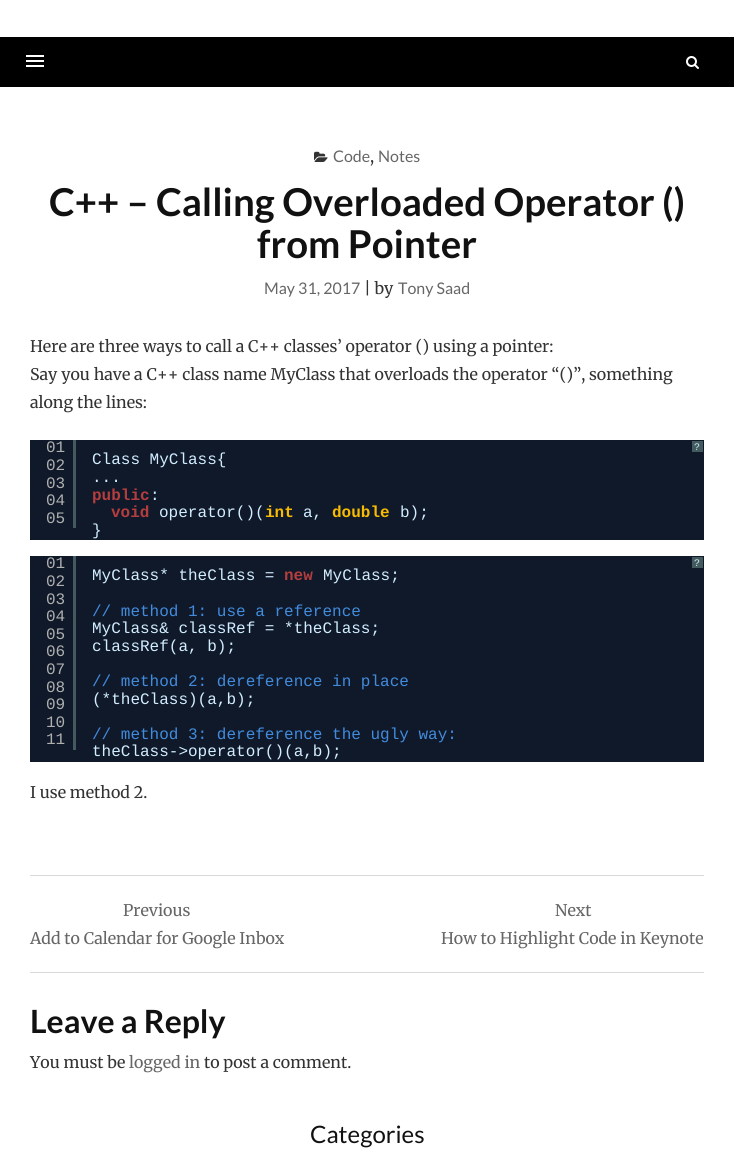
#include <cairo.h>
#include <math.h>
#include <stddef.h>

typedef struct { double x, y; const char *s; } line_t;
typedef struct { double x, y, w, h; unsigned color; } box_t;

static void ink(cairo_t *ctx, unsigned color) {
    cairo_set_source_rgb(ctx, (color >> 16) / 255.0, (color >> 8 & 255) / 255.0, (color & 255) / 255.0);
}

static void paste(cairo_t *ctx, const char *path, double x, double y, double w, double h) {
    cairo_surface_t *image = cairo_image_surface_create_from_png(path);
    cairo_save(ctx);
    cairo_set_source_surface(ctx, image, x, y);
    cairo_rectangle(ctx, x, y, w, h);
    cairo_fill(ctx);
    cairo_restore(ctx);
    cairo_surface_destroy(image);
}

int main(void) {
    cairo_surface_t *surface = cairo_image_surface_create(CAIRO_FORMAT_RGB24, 734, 1173);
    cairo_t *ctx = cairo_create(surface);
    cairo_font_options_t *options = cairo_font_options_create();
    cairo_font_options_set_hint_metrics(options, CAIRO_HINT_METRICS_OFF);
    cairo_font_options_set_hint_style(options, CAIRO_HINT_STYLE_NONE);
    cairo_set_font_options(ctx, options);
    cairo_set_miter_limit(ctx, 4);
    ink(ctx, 0xFFFFFF);
    cairo_paint(ctx);
    {
        static const box_t items[] = {
            {0, 37, 734, 50, 0x000000},
            {26, 55, 18, 2, 0xFFFFFF},
            {26, 60, 18, 2, 0xFFFFFF},
            {26, 65, 18, 2, 0xFFFFFF},
        };
        for (size_t i = 0; i < sizeof items / sizeof *items; i++) {
            ink(ctx, items[i].color);
            cairo_rectangle(ctx, items[i].x, items[i].y, items[i].w, items[i].h);
            cairo_fill(ctx);
        }
    }
    paste(ctx, "media/1.png", 686, 56, 13, 13);
    paste(ctx, "media/2.png", 314, 151, 14, 11);
    cairo_select_font_face(ctx, "Lato", CAIRO_FONT_SLANT_NORMAL, CAIRO_FONT_WEIGHT_NORMAL);
    cairo_set_font_size(ctx, 16);
    ink(ctx, 0x666666);
    cairo_move_to(ctx, 333, 162);
    cairo_show_text(ctx, "Code");
    cairo_move_to(ctx, 378, 162);
    cairo_show_text(ctx, "Notes");
    cairo_select_font_face(ctx, "Merriweather Light", CAIRO_FONT_SLANT_NORMAL, CAIRO_FONT_WEIGHT_NORMAL);
    ink(ctx, 0x333333);
    cairo_move_to(ctx, 370, 162);
    cairo_show_text(ctx, ",");
    cairo_select_font_face(ctx, "Lato", CAIRO_FONT_SLANT_NORMAL, CAIRO_FONT_WEIGHT_BOLD);
    cairo_set_font_size(ctx, 38.4);
    ink(ctx, 0x111111);
    cairo_move_to(ctx, 49, 216);
    cairo_show_text(ctx, "C++ – Calling Overloaded Operator ()");
    cairo_move_to(ctx, 257, 258);
    cairo_show_text(ctx, "from Pointer");
    cairo_select_font_face(ctx, "Lato", CAIRO_FONT_SLANT_NORMAL, CAIRO_FONT_WEIGHT_NORMAL);
    cairo_set_font_size(ctx, 16);
    ink(ctx, 0x666666);
    cairo_move_to(ctx, 264, 294);
    cairo_show_text(ctx, "May 31, 2017");
    cairo_select_font_face(ctx, "Merriweather Light", CAIRO_FONT_SLANT_NORMAL, CAIRO_FONT_WEIGHT_NORMAL);
    ink(ctx, 0x333333);
    cairo_move_to(ctx, 364, 294);
    cairo_show_text(ctx, "| by");
    cairo_select_font_face(ctx, "Lato", CAIRO_FONT_SLANT_NORMAL, CAIRO_FONT_WEIGHT_NORMAL);
    ink(ctx, 0x666666);
    cairo_move_to(ctx, 398, 294);
    cairo_show_text(ctx, "Tony Saad");
    cairo_select_font_face(ctx, "Merriweather Light", CAIRO_FONT_SLANT_NORMAL, CAIRO_FONT_WEIGHT_NORMAL);
    ink(ctx, 0x333333);
    {
        static const line_t items[] = {
            {30, 352, "Here are three ways to call a C++ classes’ operator () using a pointer:"},
            {30, 380, "Say you have a C++ class name MyClass that overloads the operator “()”, something"},
            {30, 408, "along the lines:"},
        };
        for (size_t i = 0; i < sizeof items / sizeof *items; i++) {
            cairo_move_to(ctx, items[i].x, items[i].y);
            cairo_show_text(ctx, items[i].s);
        }
    }
    ink(ctx, 0x0F192A);
    cairo_rectangle(ctx, 30, 440, 674, 100);
    cairo_fill(ctx);
    ink(ctx, 0x435A5F);
    cairo_rectangle(ctx, 73, 440, 3, 88);
    cairo_fill(ctx);
    cairo_select_font_face(ctx, "Liberation Mono", CAIRO_FONT_SLANT_NORMAL, CAIRO_FONT_WEIGHT_NORMAL);
    ink(ctx, 0xAFAFAF);
    {
        static const line_t items[] = {
            {46, 452, "01"},
            {46, 470, "02"},
            {46, 488, "03"},
            {46, 505, "04"},
            {46, 523, "05"},
        };
        for (size_t i = 0; i < sizeof items / sizeof *items; i++) {
            cairo_move_to(ctx, items[i].x, items[i].y);
            cairo_show_text(ctx, items[i].s);
        }
    }
    ink(ctx, 0xD1EDFF);
    cairo_move_to(ctx, 92, 464);
    cairo_show_text(ctx, "Class MyClass{");
    cairo_move_to(ctx, 92, 482);
    cairo_show_text(ctx, "...");
    cairo_select_font_face(ctx, "Liberation Mono", CAIRO_FONT_SLANT_NORMAL, CAIRO_FONT_WEIGHT_BOLD);
    ink(ctx, 0xB43D3D);
    cairo_move_to(ctx, 92, 500);
    cairo_show_text(ctx, "public");
    cairo_select_font_face(ctx, "Liberation Mono", CAIRO_FONT_SLANT_NORMAL, CAIRO_FONT_WEIGHT_NORMAL);
    ink(ctx, 0xD1EDFF);
    cairo_move_to(ctx, 150, 500);
    cairo_show_text(ctx, ":");
    cairo_select_font_face(ctx, "Liberation Mono", CAIRO_FONT_SLANT_NORMAL, CAIRO_FONT_WEIGHT_BOLD);
    ink(ctx, 0xB43D3D);
    cairo_move_to(ctx, 111, 517);
    cairo_show_text(ctx, "void");
    cairo_select_font_face(ctx, "Liberation Mono", CAIRO_FONT_SLANT_NORMAL, CAIRO_FONT_WEIGHT_NORMAL);
    ink(ctx, 0xD1EDFF);
    cairo_move_to(ctx, 159, 517);
    cairo_show_text(ctx, "operator()(");
    cairo_select_font_face(ctx, "Liberation Mono", CAIRO_FONT_SLANT_NORMAL, CAIRO_FONT_WEIGHT_BOLD);
    ink(ctx, 0xF8BB00);
    cairo_move_to(ctx, 265, 517);
    cairo_show_text(ctx, "int");
    cairo_select_font_face(ctx, "Liberation Mono", CAIRO_FONT_SLANT_NORMAL, CAIRO_FONT_WEIGHT_NORMAL);
    ink(ctx, 0xD1EDFF);
    cairo_move_to(ctx, 303, 517);
    cairo_show_text(ctx, "a,");
    cairo_select_font_face(ctx, "Liberation Mono", CAIRO_FONT_SLANT_NORMAL, CAIRO_FONT_WEIGHT_BOLD);
    ink(ctx, 0xF8BB00);
    cairo_move_to(ctx, 332, 517);
    cairo_show_text(ctx, "double");
    cairo_select_font_face(ctx, "Liberation Mono", CAIRO_FONT_SLANT_NORMAL, CAIRO_FONT_WEIGHT_NORMAL);
    ink(ctx, 0xD1EDFF);
    cairo_move_to(ctx, 400, 517);
    cairo_show_text(ctx, "b);");
    cairo_move_to(ctx, 92, 535);
    cairo_show_text(ctx, "}");
    ink(ctx, 0x435A5F);
    cairo_rectangle(ctx, 692, 441, 11, 11);
    cairo_fill(ctx);
    cairo_set_font_size(ctx, 10);
    ink(ctx, 0xD1EDFF);
    cairo_move_to(ctx, 694, 450);
    cairo_show_text(ctx, "?");
    ink(ctx, 0x0F192A);
    cairo_rectangle(ctx, 30, 556, 674, 206);
    cairo_fill(ctx);
    ink(ctx, 0x435A5F);
    cairo_rectangle(ctx, 73, 556, 3, 194);
    cairo_fill(ctx);
    cairo_set_font_size(ctx, 16);
    ink(ctx, 0xAFAFAF);
    {
        static const line_t items[] = {
            {46, 568, "01"},
            {46, 586, "02"},
            {46, 604, "03"},
            {46, 621, "04"},
            {46, 639, "05"},
            {46, 656, "06"},
            {46, 674, "07"},
            {46, 692, "08"},
            {46, 709, "09"},
            {46, 727, "10"},
            {46, 744, "11"},
        };
        for (size_t i = 0; i < sizeof items / sizeof *items; i++) {
            cairo_move_to(ctx, items[i].x, items[i].y);
            cairo_show_text(ctx, items[i].s);
        }
    }
    ink(ctx, 0xD1EDFF);
    cairo_move_to(ctx, 92, 580);
    cairo_show_text(ctx, "MyClass* theClass =");
    cairo_select_font_face(ctx, "Liberation Mono", CAIRO_FONT_SLANT_NORMAL, CAIRO_FONT_WEIGHT_BOLD);
    ink(ctx, 0xB43D3D);
    cairo_move_to(ctx, 284, 580);
    cairo_show_text(ctx, "new");
    cairo_select_font_face(ctx, "Liberation Mono", CAIRO_FONT_SLANT_NORMAL, CAIRO_FONT_WEIGHT_NORMAL);
    ink(ctx, 0xD1EDFF);
    cairo_move_to(ctx, 323, 580);
    cairo_show_text(ctx, "MyClass;");
    ink(ctx, 0x428BDD);
    cairo_move_to(ctx, 92, 616);
    cairo_show_text(ctx, "// method 1: use a reference");
    ink(ctx, 0xD1EDFF);
    cairo_move_to(ctx, 92, 633);
    cairo_show_text(ctx, "MyClass& classRef = *theClass;");
    cairo_move_to(ctx, 92, 651);
    cairo_show_text(ctx, "classRef(a, b);");
    ink(ctx, 0x428BDD);
    cairo_move_to(ctx, 92, 686);
    cairo_show_text(ctx, "// method 2: dereference in place");
    ink(ctx, 0xD1EDFF);
    cairo_move_to(ctx, 92, 704);
    cairo_show_text(ctx, "(*theClass)(a,b);");
    ink(ctx, 0x428BDD);
    cairo_move_to(ctx, 92, 739);
    cairo_show_text(ctx, "// method 3: dereference the ugly way:");
    ink(ctx, 0xD1EDFF);
    cairo_move_to(ctx, 92, 756);
    cairo_show_text(ctx, "theClass->operator()(a,b);");
    ink(ctx, 0x435A5F);
    cairo_rectangle(ctx, 692, 557, 11, 11);
    cairo_fill(ctx);
    cairo_set_font_size(ctx, 10);
    ink(ctx, 0xD1EDFF);
    cairo_move_to(ctx, 694, 566);
    cairo_show_text(ctx, "?");
    cairo_select_font_face(ctx, "Merriweather Light", CAIRO_FONT_SLANT_NORMAL, CAIRO_FONT_WEIGHT_NORMAL);
    cairo_set_font_size(ctx, 16);
    ink(ctx, 0x333333);
    cairo_move_to(ctx, 30, 798);
    cairo_show_text(ctx, "I use method 2.");
    ink(ctx, 0xD9D9D9);
    cairo_rectangle(ctx, 30, 875, 674, 1);
    cairo_fill(ctx);
    cairo_rectangle(ctx, 30, 972, 674, 1);
    cairo_fill(ctx);
    ink(ctx, 0x666666);
    {
        static const line_t items[] = {
            {123, 916, "Previous"},
            {30, 944, "Add to Calendar for Google Inbox"},
            {555, 916, "Next"},
            {441, 944, "How to Highlight Code in Keynote"},
        };
        for (size_t i = 0; i < sizeof items / sizeof *items; i++) {
            cairo_move_to(ctx, items[i].x, items[i].y);
            cairo_show_text(ctx, items[i].s);
        }
    }
    cairo_select_font_face(ctx, "Lato", CAIRO_FONT_SLANT_NORMAL, CAIRO_FONT_WEIGHT_BOLD);
    cairo_set_font_size(ctx, 32);
    ink(ctx, 0x111111);
    cairo_move_to(ctx, 30, 1033);
    cairo_show_text(ctx, "Leave a Reply");
    cairo_select_font_face(ctx, "Merriweather Light", CAIRO_FONT_SLANT_NORMAL, CAIRO_FONT_WEIGHT_NORMAL);
    cairo_set_font_size(ctx, 16);
    ink(ctx, 0x333333);
    cairo_move_to(ctx, 30, 1068);
    cairo_show_text(ctx, "You must be");
    ink(ctx, 0x666666);
    cairo_move_to(ctx, 129, 1068);
    cairo_show_text(ctx, "logged in");
    ink(ctx, 0x333333);
    cairo_move_to(ctx, 204, 1068);
    cairo_show_text(ctx, "to post a comment.");
    cairo_select_font_face(ctx, "Lato", CAIRO_FONT_SLANT_NORMAL, CAIRO_FONT_WEIGHT_NORMAL);
    cairo_set_font_size(ctx, 24);
    ink(ctx, 0x111111);
    cairo_move_to(ctx, 310, 1143);
    cairo_show_text(ctx, "Categories");
    cairo_surface_write_to_png(surface, "image.png");
    cairo_font_options_destroy(options);
    cairo_destroy(ctx);
    cairo_surface_destroy(surface);
    return 0;
}
